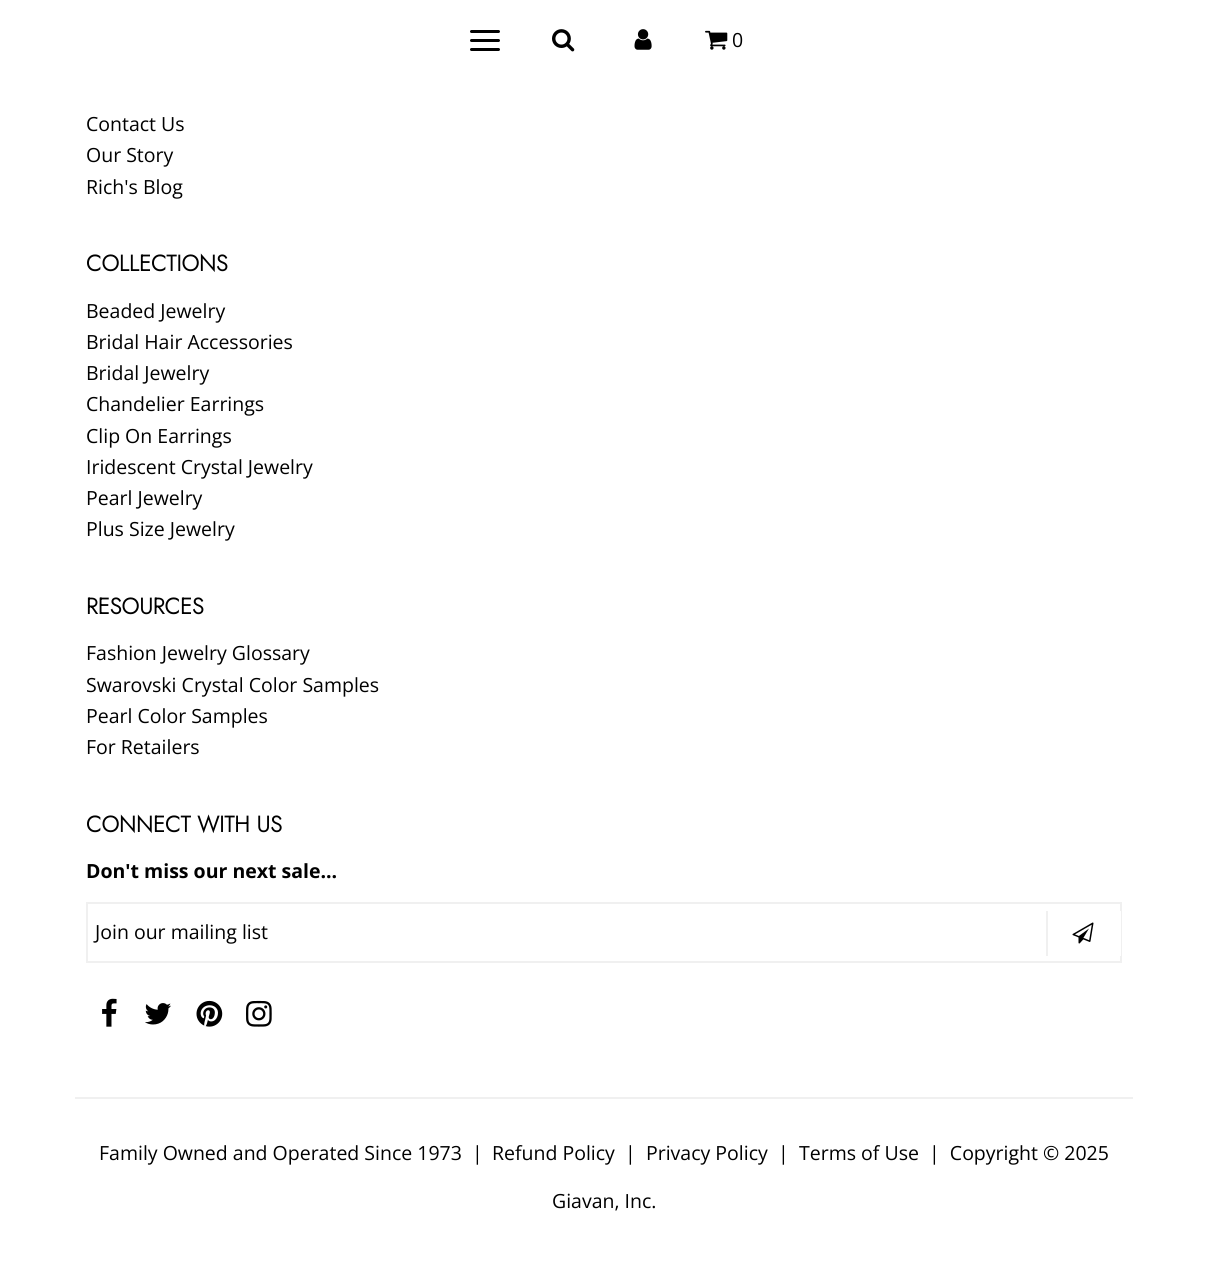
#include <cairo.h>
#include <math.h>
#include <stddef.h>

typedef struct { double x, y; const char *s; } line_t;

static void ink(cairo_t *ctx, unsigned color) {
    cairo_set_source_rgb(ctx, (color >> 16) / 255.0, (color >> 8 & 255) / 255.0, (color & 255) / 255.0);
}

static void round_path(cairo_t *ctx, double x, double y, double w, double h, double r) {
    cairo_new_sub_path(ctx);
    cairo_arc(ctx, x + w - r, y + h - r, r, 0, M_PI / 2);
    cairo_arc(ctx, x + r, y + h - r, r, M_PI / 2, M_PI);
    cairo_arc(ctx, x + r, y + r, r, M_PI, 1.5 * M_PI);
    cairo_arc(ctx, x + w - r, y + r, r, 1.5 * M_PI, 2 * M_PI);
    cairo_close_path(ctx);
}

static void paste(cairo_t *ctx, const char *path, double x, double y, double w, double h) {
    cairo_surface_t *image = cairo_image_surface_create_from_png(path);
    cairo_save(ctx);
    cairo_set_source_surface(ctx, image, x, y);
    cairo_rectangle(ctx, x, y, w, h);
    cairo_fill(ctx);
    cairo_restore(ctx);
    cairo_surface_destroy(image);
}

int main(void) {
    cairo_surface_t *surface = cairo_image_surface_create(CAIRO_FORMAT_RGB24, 1207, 1268);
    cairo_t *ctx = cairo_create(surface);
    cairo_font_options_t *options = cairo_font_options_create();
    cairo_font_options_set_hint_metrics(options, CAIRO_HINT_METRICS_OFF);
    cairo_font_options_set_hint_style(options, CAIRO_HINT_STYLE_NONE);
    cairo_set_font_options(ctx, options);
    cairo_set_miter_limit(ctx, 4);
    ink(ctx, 0xFFFFFF);
    cairo_paint(ctx);
    ink(ctx, 0x000000);
    round_path(ctx, 470, 39, 30, 3, 1.5);
    cairo_fill(ctx);
    round_path(ctx, 470, 30, 30, 3, 1.5);
    cairo_fill(ctx);
    round_path(ctx, 470, 48, 30, 3, 1.5);
    cairo_fill(ctx);
    paste(ctx, "media/1.png", 552, 29, 23, 23);
    paste(ctx, "media/2.png", 634, 29, 18, 21);
    paste(ctx, "media/3.png", 705, 30, 23, 20);
    cairo_select_font_face(ctx, "Open Sans", CAIRO_FONT_SLANT_NORMAL, CAIRO_FONT_WEIGHT_NORMAL);
    cairo_set_font_size(ctx, 19.5);
    cairo_move_to(ctx, 732, 47);
    cairo_show_text(ctx, "0");
    ink(ctx, 0xF0F0F0);
    cairo_rectangle(ctx, 75, 1097, 1058, 2);
    cairo_fill(ctx);
    ink(ctx, 0x000000);
    {
        static const line_t items[] = {
            {86, 131, "Contact Us"},
            {86, 162, "Our Story"},
            {86, 194, "Rich's Blog"},
        };
        for (size_t i = 0; i < sizeof items / sizeof *items; i++) {
            cairo_move_to(ctx, items[i].x, items[i].y);
            cairo_show_text(ctx, items[i].s);
        }
    }
    cairo_select_font_face(ctx, "Jost", CAIRO_FONT_SLANT_NORMAL, CAIRO_FONT_WEIGHT_BOLD);
    cairo_set_font_size(ctx, 22.5);
    cairo_move_to(ctx, 86, 271);
    cairo_show_text(ctx, "COLLECTIONS");
    cairo_select_font_face(ctx, "Open Sans", CAIRO_FONT_SLANT_NORMAL, CAIRO_FONT_WEIGHT_NORMAL);
    cairo_set_font_size(ctx, 19.5);
    {
        static const line_t items[] = {
            {86, 318, "Beaded Jewelry"},
            {86, 349, "Bridal Hair Accessories"},
            {86, 380, "Bridal Jewelry"},
            {86, 411, "Chandelier Earrings"},
            {86, 443, "Clip On Earrings"},
            {86, 474, "Iridescent Crystal Jewelry"},
            {86, 505, "Pearl Jewelry"},
            {86, 536, "Plus Size Jewelry"},
        };
        for (size_t i = 0; i < sizeof items / sizeof *items; i++) {
            cairo_move_to(ctx, items[i].x, items[i].y);
            cairo_show_text(ctx, items[i].s);
        }
    }
    cairo_select_font_face(ctx, "Jost", CAIRO_FONT_SLANT_NORMAL, CAIRO_FONT_WEIGHT_BOLD);
    cairo_set_font_size(ctx, 22.5);
    cairo_move_to(ctx, 86, 614);
    cairo_show_text(ctx, "RESOURCES");
    cairo_select_font_face(ctx, "Open Sans", CAIRO_FONT_SLANT_NORMAL, CAIRO_FONT_WEIGHT_NORMAL);
    cairo_set_font_size(ctx, 19.5);
    {
        static const line_t items[] = {
            {86, 660, "Fashion Jewelry Glossary"},
            {86, 692, "Swarovski Crystal Color Samples"},
            {86, 723, "Pearl Color Samples"},
            {86, 754, "For Retailers"},
        };
        for (size_t i = 0; i < sizeof items / sizeof *items; i++) {
            cairo_move_to(ctx, items[i].x, items[i].y);
            cairo_show_text(ctx, items[i].s);
        }
    }
    cairo_select_font_face(ctx, "Jost", CAIRO_FONT_SLANT_NORMAL, CAIRO_FONT_WEIGHT_BOLD);
    cairo_set_font_size(ctx, 22.5);
    cairo_move_to(ctx, 86, 832);
    cairo_show_text(ctx, "CONNECT WITH US");
    cairo_select_font_face(ctx, "Open Sans", CAIRO_FONT_SLANT_NORMAL, CAIRO_FONT_WEIGHT_BOLD);
    cairo_set_font_size(ctx, 19.5);
    cairo_move_to(ctx, 86, 878);
    cairo_show_text(ctx, "Don't miss our next sale...");
    cairo_rectangle(ctx, 87, 903, 1034, 59);
    ink(ctx, 0xF0F0F0);
    cairo_stroke(ctx);
    cairo_select_font_face(ctx, "Open Sans", CAIRO_FONT_SLANT_NORMAL, CAIRO_FONT_WEIGHT_NORMAL);
    ink(ctx, 0x000000);
    cairo_move_to(ctx, 95, 939);
    cairo_show_text(ctx, "Join our mailing list");
    ink(ctx, 0xFFFFFF);
    cairo_rectangle(ctx, 1120, 911, 1, 45);
    cairo_fill(ctx);
    ink(ctx, 0xF0F0F0);
    cairo_rectangle(ctx, 1046, 911, 2, 45);
    cairo_fill(ctx);
    paste(ctx, "media/4.png", 1072, 922, 22, 22);
    paste(ctx, "media/5.png", 102, 998, 15, 29);
    paste(ctx, "media/6.png", 145, 1003, 26, 22);
    paste(ctx, "media/7.png", 196, 1000, 27, 27);
    paste(ctx, "media/8.png", 246, 1000, 26, 27);
    ink(ctx, 0x000000);
    {
        static const line_t items[] = {
            {99, 1160, "Family Owned and Operated Since 1973  |"},
            {492, 1160, "Refund Policy"},
            {625, 1160, "|"},
            {646, 1160, "Privacy Policy"},
            {778, 1160, "|"},
            {799, 1160, "Terms of Use"},
            {929, 1160, "|  Copyright © 2025"},
            {552, 1208, "Giavan, Inc."},
        };
        for (size_t i = 0; i < sizeof items / sizeof *items; i++) {
            cairo_move_to(ctx, items[i].x, items[i].y);
            cairo_show_text(ctx, items[i].s);
        }
    }
    cairo_surface_write_to_png(surface, "image.png");
    cairo_font_options_destroy(options);
    cairo_destroy(ctx);
    cairo_surface_destroy(surface);
    return 0;
}
